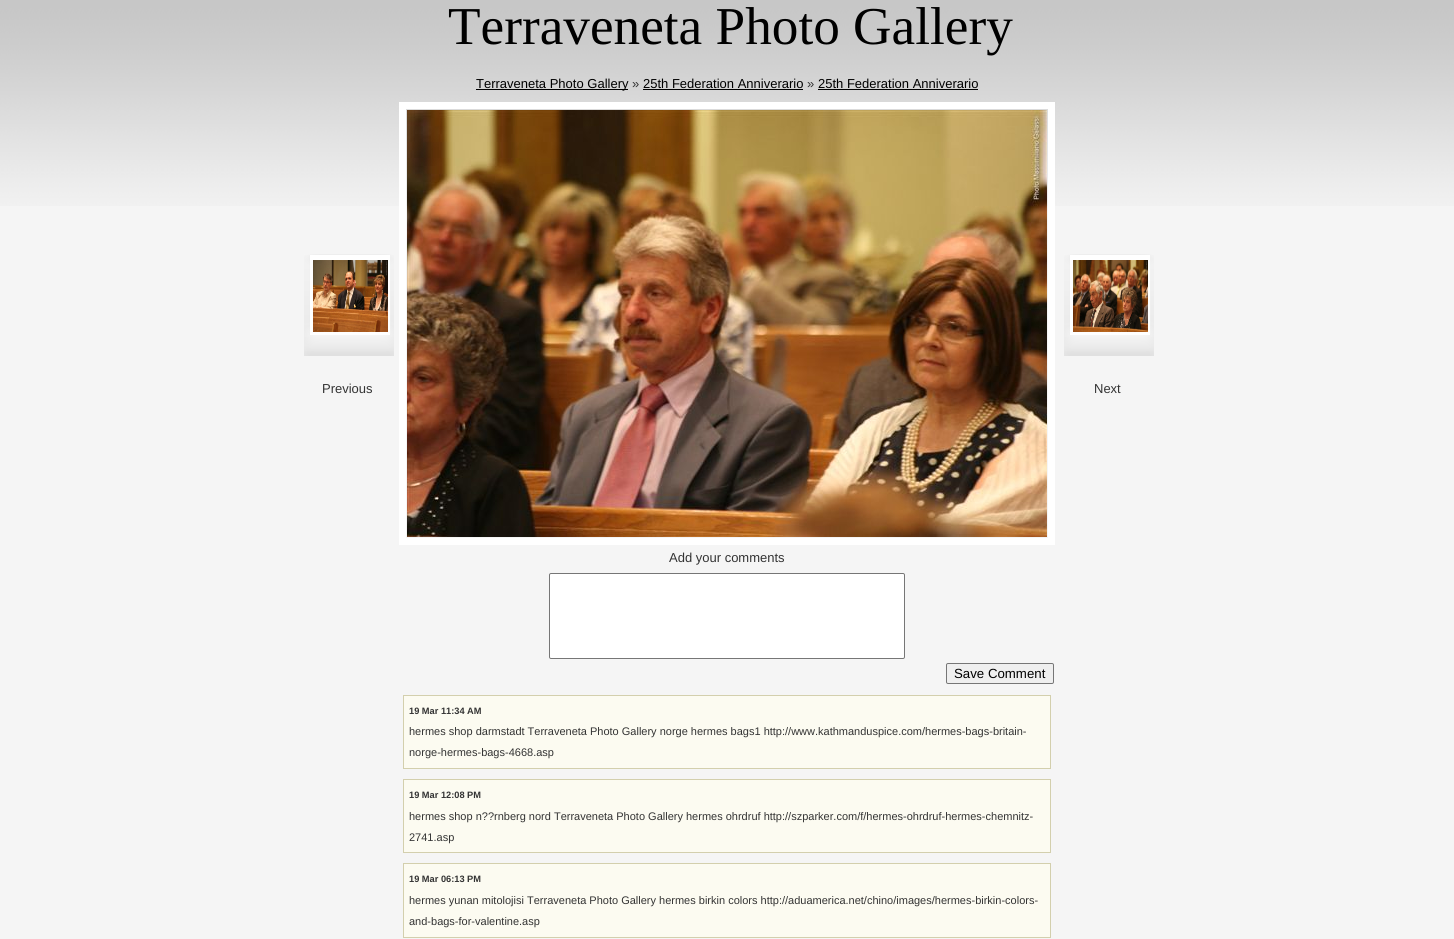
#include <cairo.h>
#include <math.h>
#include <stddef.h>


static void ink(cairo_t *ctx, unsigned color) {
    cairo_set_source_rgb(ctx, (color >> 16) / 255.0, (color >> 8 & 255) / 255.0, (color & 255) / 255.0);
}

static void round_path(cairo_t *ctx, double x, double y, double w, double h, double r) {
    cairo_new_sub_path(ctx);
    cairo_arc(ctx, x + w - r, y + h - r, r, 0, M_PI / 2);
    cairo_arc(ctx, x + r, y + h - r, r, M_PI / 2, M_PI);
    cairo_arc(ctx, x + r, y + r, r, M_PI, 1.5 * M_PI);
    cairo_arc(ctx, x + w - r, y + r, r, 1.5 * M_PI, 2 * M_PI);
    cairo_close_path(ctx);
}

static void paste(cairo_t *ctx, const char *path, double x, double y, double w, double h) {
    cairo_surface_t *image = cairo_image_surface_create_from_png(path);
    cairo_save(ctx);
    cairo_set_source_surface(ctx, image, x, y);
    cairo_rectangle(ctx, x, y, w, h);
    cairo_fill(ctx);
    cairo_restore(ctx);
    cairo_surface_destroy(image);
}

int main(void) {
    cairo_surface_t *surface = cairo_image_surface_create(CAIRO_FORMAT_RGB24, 1454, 939);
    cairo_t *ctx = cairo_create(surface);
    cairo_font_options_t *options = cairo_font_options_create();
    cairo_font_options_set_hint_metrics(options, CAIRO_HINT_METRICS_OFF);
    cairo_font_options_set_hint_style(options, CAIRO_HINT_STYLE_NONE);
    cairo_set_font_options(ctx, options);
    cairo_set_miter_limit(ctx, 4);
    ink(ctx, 0xF5F5F5);
    cairo_paint(ctx);
    paste(ctx, "media/1.png", 0, 0, 1454, 206);
    cairo_select_font_face(ctx, "Liberation Serif", CAIRO_FONT_SLANT_NORMAL, CAIRO_FONT_WEIGHT_NORMAL);
    cairo_set_font_size(ctx, 53.25);
    ink(ctx, 0x000000);
    cairo_move_to(ctx, 448, 44);
    cairo_show_text(ctx, "Terraveneta Photo Gallery");
    cairo_rectangle(ctx, 476, 89, 152, 1);
    cairo_fill(ctx);
    cairo_select_font_face(ctx, "Liberation Sans", CAIRO_FONT_SLANT_NORMAL, CAIRO_FONT_WEIGHT_NORMAL);
    cairo_set_font_size(ctx, 13);
    cairo_move_to(ctx, 476, 88);
    cairo_show_text(ctx, "Terraveneta Photo Gallery");
    ink(ctx, 0x333333);
    cairo_move_to(ctx, 632, 88);
    cairo_show_text(ctx, "»");
    ink(ctx, 0x000000);
    cairo_move_to(ctx, 643, 88);
    cairo_show_text(ctx, "25th Federation Anniverario");
    cairo_rectangle(ctx, 643, 89, 160, 1);
    cairo_fill(ctx);
    ink(ctx, 0x333333);
    cairo_move_to(ctx, 807, 88);
    cairo_show_text(ctx, "»");
    ink(ctx, 0x000000);
    cairo_move_to(ctx, 818, 88);
    cairo_show_text(ctx, "25th Federation Anniverario");
    cairo_rectangle(ctx, 818, 89, 160, 1);
    cairo_fill(ctx);
    paste(ctx, "media/2.png", 304, 254, 90, 102);
    paste(ctx, "media/3.png", 313, 260, 75, 72);
    ink(ctx, 0x333333);
    cairo_move_to(ctx, 322, 393);
    cairo_show_text(ctx, "Previous");
    cairo_rectangle(ctx, 402.5, 105.5, 649, 436);
    ink(ctx, 0xFFFFFF);
    cairo_set_line_width(ctx, 7);
    cairo_stroke(ctx);
    paste(ctx, "media/4.png", 407, 110, 640, 427);
    paste(ctx, "media/2.png", 1064, 254, 90, 102);
    paste(ctx, "media/5.png", 1073, 260, 75, 72);
    ink(ctx, 0x333333);
    cairo_move_to(ctx, 1094, 393);
    cairo_show_text(ctx, "Next");
    cairo_move_to(ctx, 669, 562);
    cairo_show_text(ctx, "Add your comments");
    ink(ctx, 0xFFFFFF);
    round_path(ctx, 549.5, 573.5, 355, 85, 1.5);
    cairo_fill_preserve(ctx);
    ink(ctx, 0x767676);
    cairo_set_line_width(ctx, 1);
    cairo_stroke(ctx);
    ink(ctx, 0xEFEFEF);
    round_path(ctx, 946.5, 663.5, 107, 20, 1.5);
    cairo_fill_preserve(ctx);
    ink(ctx, 0x767676);
    cairo_stroke(ctx);
    cairo_set_font_size(ctx, 13.25);
    ink(ctx, 0x000000);
    cairo_move_to(ctx, 954, 678);
    cairo_show_text(ctx, "Save Comment");
    ink(ctx, 0xFCFBF1);
    cairo_rectangle(ctx, 403.5, 695.5, 647, 73);
    cairo_fill_preserve(ctx);
    ink(ctx, 0xD3CFAD);
    cairo_stroke(ctx);
    cairo_select_font_face(ctx, "Liberation Sans", CAIRO_FONT_SLANT_NORMAL, CAIRO_FONT_WEIGHT_BOLD);
    cairo_set_font_size(ctx, 9.25);
    ink(ctx, 0x333333);
    cairo_move_to(ctx, 409, 714);
    cairo_show_text(ctx, "19 Mar 11:34 AM");
    cairo_select_font_face(ctx, "Liberation Sans", CAIRO_FONT_SLANT_NORMAL, CAIRO_FONT_WEIGHT_NORMAL);
    cairo_set_font_size(ctx, 11);
    cairo_move_to(ctx, 409, 735);
    cairo_show_text(ctx, "hermes shop darmstadt Terraveneta Photo Gallery norge hermes bags1 http://www.kathmanduspice.com/hermes-bags-britain-");
    cairo_move_to(ctx, 409, 756);
    cairo_show_text(ctx, "norge-hermes-bags-4668.asp");
    ink(ctx, 0xFCFBF1);
    cairo_rectangle(ctx, 403.5, 779.5, 647, 73);
    cairo_fill_preserve(ctx);
    ink(ctx, 0xD3CFAD);
    cairo_stroke(ctx);
    cairo_select_font_face(ctx, "Liberation Sans", CAIRO_FONT_SLANT_NORMAL, CAIRO_FONT_WEIGHT_BOLD);
    cairo_set_font_size(ctx, 9.25);
    ink(ctx, 0x333333);
    cairo_move_to(ctx, 409, 798);
    cairo_show_text(ctx, "19 Mar 12:08 PM");
    cairo_select_font_face(ctx, "Liberation Sans", CAIRO_FONT_SLANT_NORMAL, CAIRO_FONT_WEIGHT_NORMAL);
    cairo_set_font_size(ctx, 11);
    cairo_move_to(ctx, 409, 820);
    cairo_show_text(ctx, "hermes shop n?\077rnberg nord Terraveneta Photo Gallery hermes ohrdruf http://szparker.com/f/hermes-ohrdruf-hermes-chemnitz-");
    cairo_move_to(ctx, 409, 841);
    cairo_show_text(ctx, "2741.asp");
    ink(ctx, 0xFCFBF1);
    cairo_rectangle(ctx, 403.5, 863.5, 647, 74);
    cairo_fill_preserve(ctx);
    ink(ctx, 0xD3CFAD);
    cairo_stroke(ctx);
    cairo_select_font_face(ctx, "Liberation Sans", CAIRO_FONT_SLANT_NORMAL, CAIRO_FONT_WEIGHT_BOLD);
    cairo_set_font_size(ctx, 9.25);
    ink(ctx, 0x333333);
    cairo_move_to(ctx, 409, 882);
    cairo_show_text(ctx, "19 Mar 06:13 PM");
    cairo_select_font_face(ctx, "Liberation Sans", CAIRO_FONT_SLANT_NORMAL, CAIRO_FONT_WEIGHT_NORMAL);
    cairo_set_font_size(ctx, 11);
    cairo_move_to(ctx, 409, 904);
    cairo_show_text(ctx, "hermes yunan mitolojisi Terraveneta Photo Gallery hermes birkin colors http://aduamerica.net/chino/images/hermes-birkin-colors-");
    cairo_move_to(ctx, 409, 925);
    cairo_show_text(ctx, "and-bags-for-valentine.asp");
    cairo_surface_write_to_png(surface, "image.png");
    cairo_font_options_destroy(options);
    cairo_destroy(ctx);
    cairo_surface_destroy(surface);
    return 0;
}
